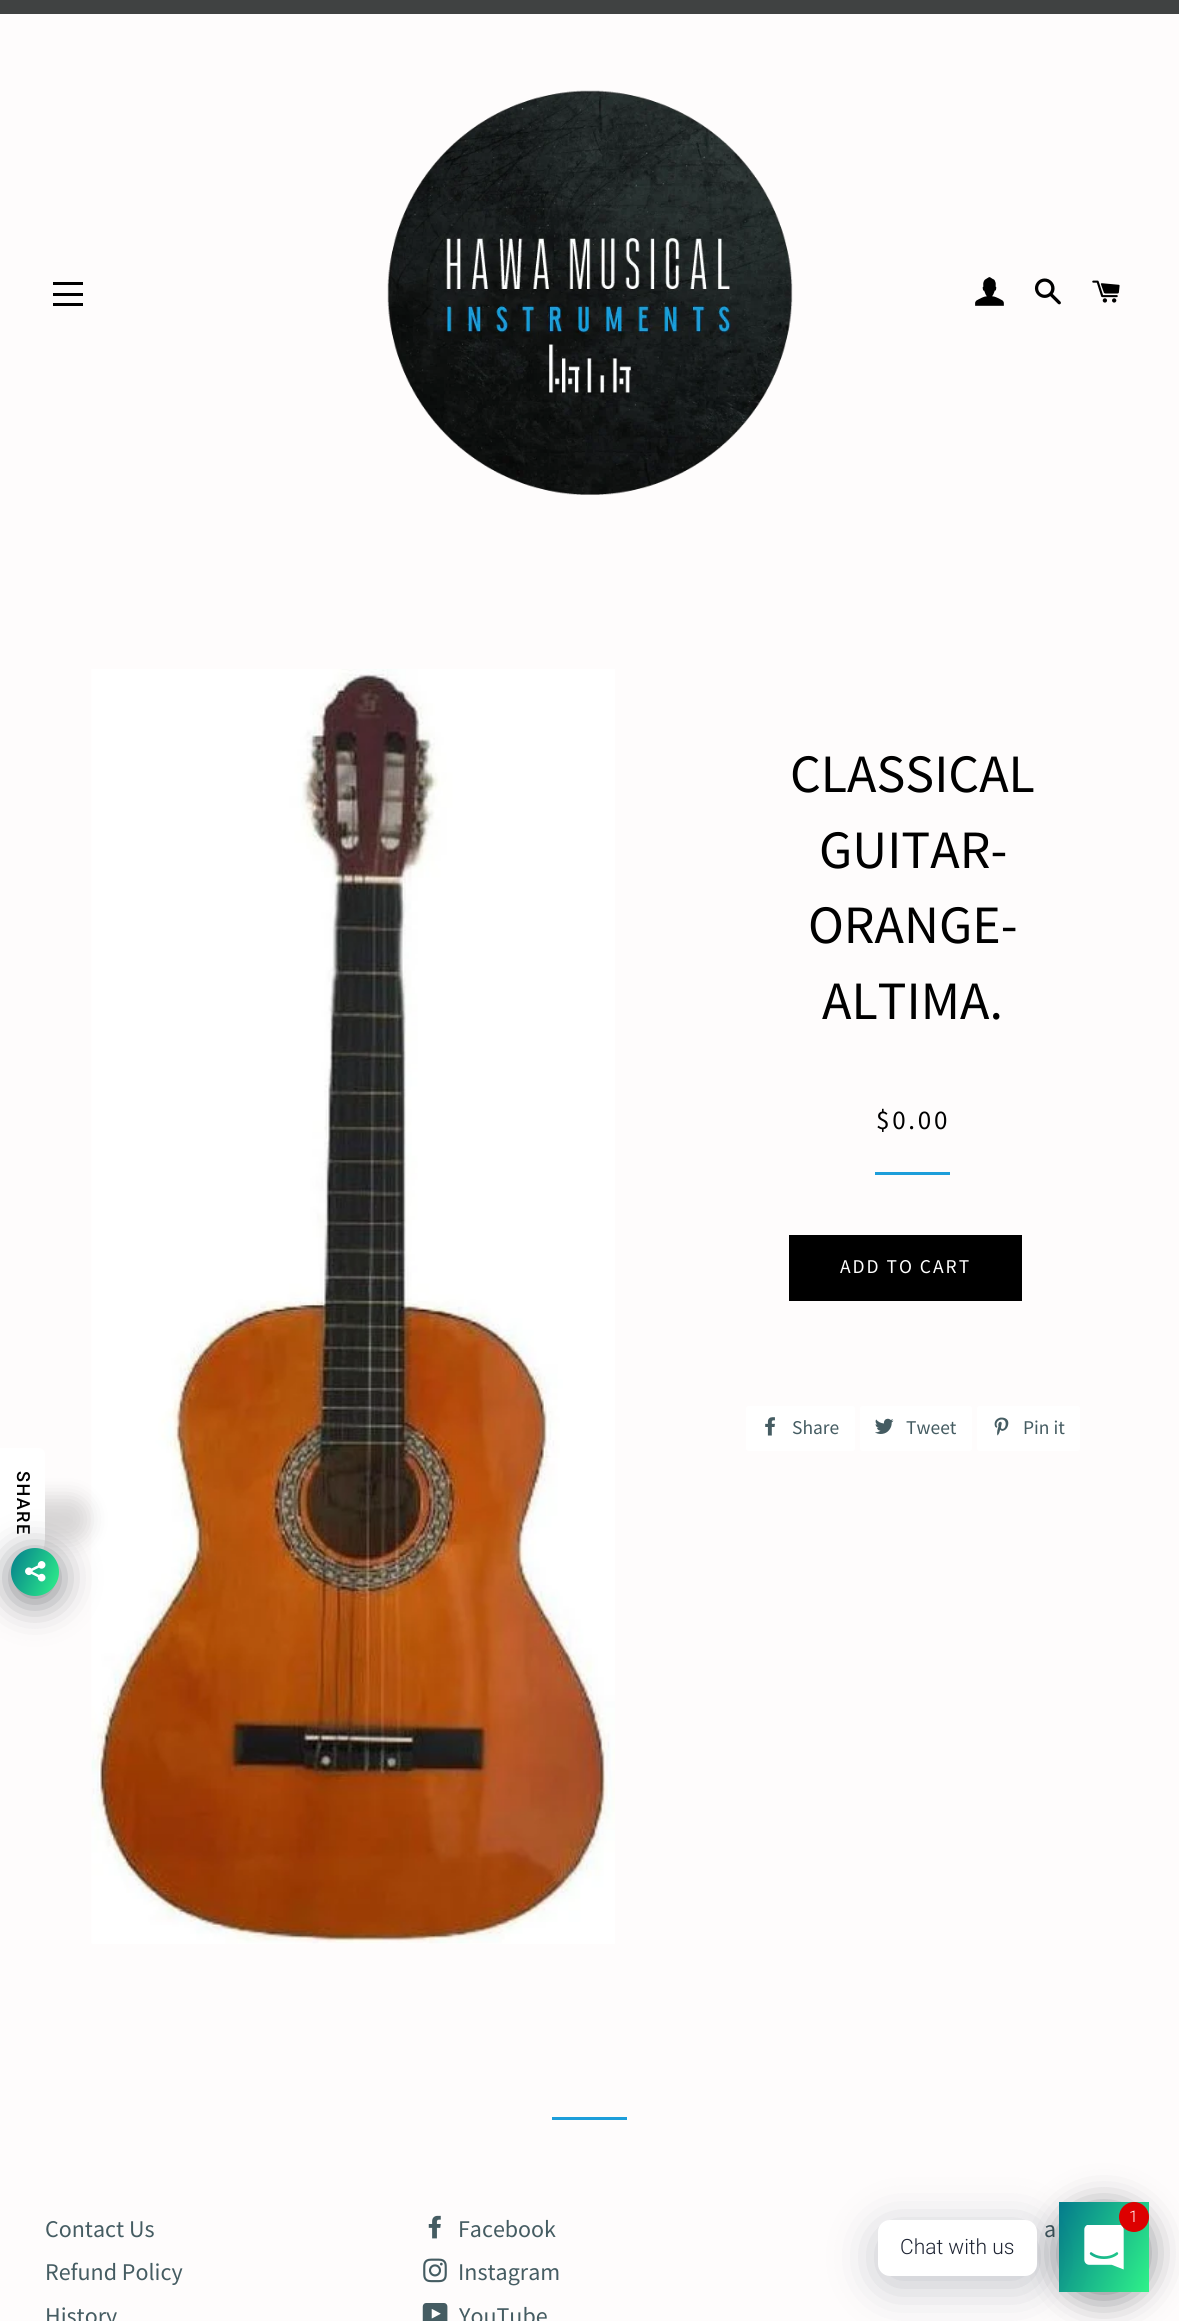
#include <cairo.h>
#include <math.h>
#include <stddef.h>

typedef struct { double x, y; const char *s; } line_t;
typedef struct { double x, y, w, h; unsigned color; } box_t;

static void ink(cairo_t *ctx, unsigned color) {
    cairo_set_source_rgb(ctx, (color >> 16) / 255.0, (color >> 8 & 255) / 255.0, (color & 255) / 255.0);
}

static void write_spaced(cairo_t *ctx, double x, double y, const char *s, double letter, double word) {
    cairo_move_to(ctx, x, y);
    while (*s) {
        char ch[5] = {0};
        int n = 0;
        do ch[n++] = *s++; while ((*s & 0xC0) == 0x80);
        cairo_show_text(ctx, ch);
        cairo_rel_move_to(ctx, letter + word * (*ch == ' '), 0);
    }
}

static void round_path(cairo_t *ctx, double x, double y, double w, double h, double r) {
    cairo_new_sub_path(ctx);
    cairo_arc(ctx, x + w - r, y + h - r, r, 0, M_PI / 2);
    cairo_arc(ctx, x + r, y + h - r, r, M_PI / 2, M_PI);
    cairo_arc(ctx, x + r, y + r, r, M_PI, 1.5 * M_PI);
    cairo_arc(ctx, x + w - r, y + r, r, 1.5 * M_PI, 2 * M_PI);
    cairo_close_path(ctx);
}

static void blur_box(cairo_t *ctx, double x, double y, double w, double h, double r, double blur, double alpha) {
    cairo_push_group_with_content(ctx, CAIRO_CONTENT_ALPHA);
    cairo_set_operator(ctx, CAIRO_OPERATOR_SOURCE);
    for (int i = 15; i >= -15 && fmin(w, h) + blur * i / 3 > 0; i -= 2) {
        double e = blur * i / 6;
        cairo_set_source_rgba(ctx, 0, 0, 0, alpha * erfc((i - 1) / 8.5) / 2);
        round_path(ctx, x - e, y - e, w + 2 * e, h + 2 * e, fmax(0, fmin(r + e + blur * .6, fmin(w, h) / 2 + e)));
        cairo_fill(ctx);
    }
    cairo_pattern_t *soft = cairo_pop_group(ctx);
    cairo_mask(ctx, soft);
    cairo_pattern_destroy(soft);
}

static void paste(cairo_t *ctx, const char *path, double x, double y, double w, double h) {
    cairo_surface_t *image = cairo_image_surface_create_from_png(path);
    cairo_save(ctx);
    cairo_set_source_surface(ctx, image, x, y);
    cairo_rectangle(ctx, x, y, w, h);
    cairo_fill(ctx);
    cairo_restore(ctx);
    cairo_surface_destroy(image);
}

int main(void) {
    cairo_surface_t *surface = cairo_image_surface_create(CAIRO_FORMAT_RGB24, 1179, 2321);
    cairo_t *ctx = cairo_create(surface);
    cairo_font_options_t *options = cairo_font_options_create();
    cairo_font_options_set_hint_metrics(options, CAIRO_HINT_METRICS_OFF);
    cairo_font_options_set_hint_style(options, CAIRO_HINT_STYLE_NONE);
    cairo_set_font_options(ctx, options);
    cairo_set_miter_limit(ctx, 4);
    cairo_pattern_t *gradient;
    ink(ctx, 0xFEFCFC);
    cairo_paint(ctx);
    {
        static const box_t items[] = {
            {0, 0, 1179, 14, 0x404242},
            {53, 282, 30, 3, 0x000000},
            {53, 293, 30, 3, 0x000000},
            {53, 303, 30, 3, 0x000000},
        };
        for (size_t i = 0; i < sizeof items / sizeof *items; i++) {
            ink(ctx, items[i].color);
            cairo_rectangle(ctx, items[i].x, items[i].y, items[i].w, items[i].h);
            cairo_fill(ctx);
        }
    }
    paste(ctx, "media/1.png", 387, 90, 406, 405);
    paste(ctx, "media/2.png", 975, 277, 29, 29);
    paste(ctx, "media/3.png", 1034, 278, 27, 27);
    paste(ctx, "media/4.png", 1092, 280, 28, 23);
    ink(ctx, 0xFFFFFF);
    cairo_rectangle(ctx, 92, 1943, 523, 1);
    cairo_fill(ctx);
    paste(ctx, "media/5.png", 91, 669, 524, 1275);
    cairo_select_font_face(ctx, "Source Sans Pro", CAIRO_FONT_SLANT_NORMAL, CAIRO_FONT_WEIGHT_NORMAL);
    cairo_set_font_size(ctx, 54);
    ink(ctx, 0x000000);
    {
        static const line_t items[] = {
            {790, 792, "CLASSICAL"},
            {819, 868, "GUITAR-"},
            {808, 943, "ORANGE-"},
            {822, 1019, "ALTIMA."},
        };
        for (size_t i = 0; i < sizeof items / sizeof *items; i++) {
            cairo_move_to(ctx, items[i].x, items[i].y);
            cairo_show_text(ctx, items[i].s);
        }
    }
    cairo_set_font_size(ctx, 27);
    write_spaced(ctx, 876, 1129, "$0.00", 2.75, 0);
    ink(ctx, 0x1D9EDA);
    cairo_rectangle(ctx, 875, 1172, 75, 3);
    cairo_fill(ctx);
    ink(ctx, 0x000000);
    cairo_rectangle(ctx, 789, 1235, 233, 66);
    cairo_fill(ctx);
    cairo_set_font_size(ctx, 19.5);
    ink(ctx, 0xFFFFFF);
    write_spaced(ctx, 840, 1273, "ADD TO CART", 2, 0);
    round_path(ctx, 746, 1406, 109, 45, 3);
    cairo_fill(ctx);
    paste(ctx, "media/6.png", 765, 1417, 10, 19);
    ink(ctx, 0x455C62);
    cairo_move_to(ctx, 792, 1434);
    cairo_show_text(ctx, "Share");
    ink(ctx, 0xFFFFFF);
    round_path(ctx, 860, 1406, 112, 45, 3);
    cairo_fill(ctx);
    paste(ctx, "media/7.png", 875, 1418, 19, 16);
    ink(ctx, 0x455C62);
    cairo_move_to(ctx, 906, 1434);
    cairo_show_text(ctx, "Tweet");
    ink(ctx, 0xFFFFFF);
    round_path(ctx, 977, 1406, 103, 45, 3);
    cairo_fill(ctx);
    paste(ctx, "media/8.png", 994, 1417, 15, 19);
    ink(ctx, 0x455C62);
    cairo_move_to(ctx, 1023, 1434);
    cairo_show_text(ctx, "Pin it");
    ink(ctx, 0x1D9EDA);
    cairo_rectangle(ctx, 552, 2117, 75, 3);
    cairo_fill(ctx);
    cairo_set_font_size(ctx, 24);
    ink(ctx, 0x455C62);
    {
        static const line_t items[] = {
            {45, 2237, "Contact Us"},
            {45, 2280, "Refund Policy"},
            {45, 2324, "History"},
        };
        for (size_t i = 0; i < sizeof items / sizeof *items; i++) {
            cairo_move_to(ctx, items[i].x, items[i].y);
            cairo_show_text(ctx, items[i].s);
        }
    }
    paste(ctx, "media/9.png", 428, 2215, 13, 24);
    cairo_move_to(ctx, 458, 2237);
    cairo_show_text(ctx, "Facebook");
    paste(ctx, "media/10.png", 423, 2258, 24, 25);
    cairo_move_to(ctx, 458, 2280);
    cairo_show_text(ctx, "Instagram");
    paste(ctx, "media/11.png", 422, 2303, 26, 18);
    cairo_move_to(ctx, 459, 2324);
    cairo_show_text(ctx, "YouTube");
    cairo_move_to(ctx, 1044, 2237);
    cairo_show_text(ctx, "a");
    ink(ctx, 0x000000);
    blur_box(ctx, -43, 1497, 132, 45, 42, 10.5, 0.15);
    ink(ctx, 0xFFFFFF);
    cairo_new_path(ctx);
    cairo_move_to(ctx, 0, 1580);
    cairo_line_to(ctx, 0, 1448);
    cairo_line_to(ctx, 39, 1448);
    cairo_curve_to(ctx, 42, 1448, 45, 1451, 45, 1454);
    cairo_line_to(ctx, 45, 1538);
    cairo_curve_to(ctx, 45, 1562, 26, 1580, 3, 1580);
    cairo_close_path(ctx);
    cairo_fill(ctx);
    cairo_select_font_face(ctx, "Roboto Medium", CAIRO_FONT_SLANT_NORMAL, CAIRO_FONT_WEIGHT_NORMAL);
    cairo_set_font_size(ctx, 18);
    ink(ctx, 0x000000);
    cairo_save(ctx);
    cairo_translate(ctx, 17, 1471);
    cairo_rotate(ctx, 90 * M_PI / 180);
    write_spaced(ctx, 0, 0, "SHARE", 1.5, 0);
    cairo_restore(ctx);
    ink(ctx, 0x020610);
    blur_box(ctx, 11, 1554, 48, 48, 24, 18, 0.5);
    gradient = cairo_pattern_create_linear(5.6, 1559, 63, 1585);
    cairo_pattern_add_color_stop_rgba(gradient, 0, 0.016, 0.486, 0.553, 1);
    cairo_pattern_add_color_stop_rgba(gradient, 1, 0.184, 0.949, 0.537, 1);
    cairo_set_source(ctx, gradient);
    cairo_pattern_destroy(gradient);
    cairo_arc(ctx, 35, 1572, 24, 0, 2 * M_PI);
    cairo_fill(ctx);
    paste(ctx, "media/12.png", 25, 1561, 21, 21);
    ink(ctx, 0x020610);
    blur_box(ctx, 1059, 2208, 90, 90, 45, 18, 0.5);
    gradient = cairo_pattern_create_linear(1050, 2222, 1158, 2272);
    cairo_pattern_add_color_stop_rgba(gradient, 0, 0.016, 0.486, 0.553, 1);
    cairo_pattern_add_color_stop_rgba(gradient, 1, 0.184, 0.949, 0.537, 1);
    cairo_set_source(ctx, gradient);
    cairo_pattern_destroy(gradient);
    cairo_rectangle(ctx, 1059, 2202, 90, 90);
    cairo_fill(ctx);
    ink(ctx, 0x00122E);
    blur_box(ctx, 878, 2229, 159, 56, 12, 24, 0.24);
    paste(ctx, "media/13.png", 1084, 2225, 40, 45);
    ink(ctx, 0xDD0000);
    cairo_arc(ctx, 1134, 2217, 15, 0, 2 * M_PI);
    cairo_fill(ctx);
    cairo_select_font_face(ctx, "Roboto Light", CAIRO_FONT_SLANT_NORMAL, CAIRO_FONT_WEIGHT_NORMAL);
    cairo_set_font_size(ctx, 16);
    ink(ctx, 0xFFFFFF);
    cairo_move_to(ctx, 1129, 2222);
    cairo_show_text(ctx, "1");
    round_path(ctx, 878, 2220, 159, 56, 12);
    cairo_fill(ctx);
    cairo_set_font_size(ctx, 21);
    ink(ctx, 0x1E2433);
    cairo_move_to(ctx, 900, 2254);
    cairo_show_text(ctx, "Chat with us");
    cairo_surface_write_to_png(surface, "image.png");
    cairo_font_options_destroy(options);
    cairo_destroy(ctx);
    cairo_surface_destroy(surface);
    return 0;
}
